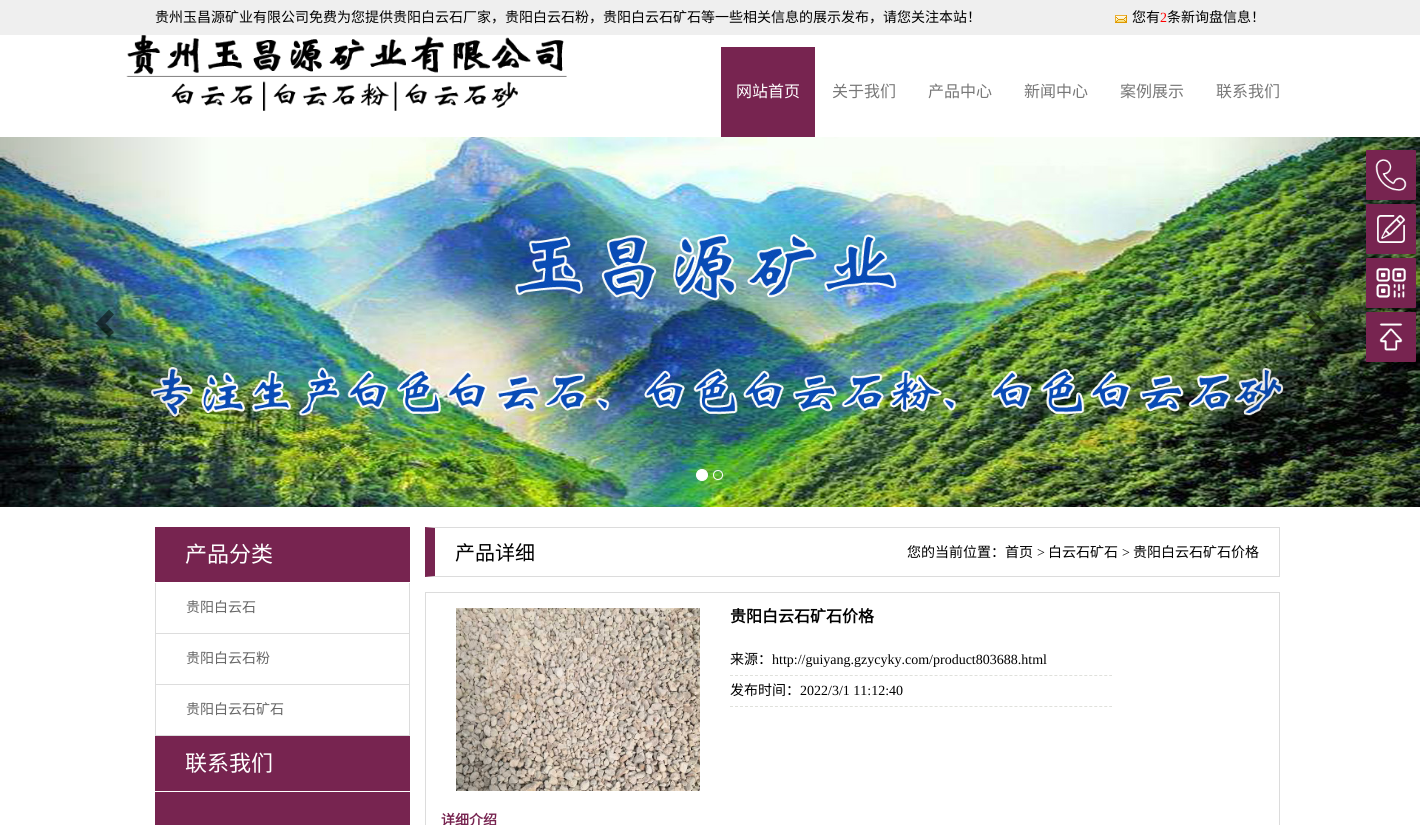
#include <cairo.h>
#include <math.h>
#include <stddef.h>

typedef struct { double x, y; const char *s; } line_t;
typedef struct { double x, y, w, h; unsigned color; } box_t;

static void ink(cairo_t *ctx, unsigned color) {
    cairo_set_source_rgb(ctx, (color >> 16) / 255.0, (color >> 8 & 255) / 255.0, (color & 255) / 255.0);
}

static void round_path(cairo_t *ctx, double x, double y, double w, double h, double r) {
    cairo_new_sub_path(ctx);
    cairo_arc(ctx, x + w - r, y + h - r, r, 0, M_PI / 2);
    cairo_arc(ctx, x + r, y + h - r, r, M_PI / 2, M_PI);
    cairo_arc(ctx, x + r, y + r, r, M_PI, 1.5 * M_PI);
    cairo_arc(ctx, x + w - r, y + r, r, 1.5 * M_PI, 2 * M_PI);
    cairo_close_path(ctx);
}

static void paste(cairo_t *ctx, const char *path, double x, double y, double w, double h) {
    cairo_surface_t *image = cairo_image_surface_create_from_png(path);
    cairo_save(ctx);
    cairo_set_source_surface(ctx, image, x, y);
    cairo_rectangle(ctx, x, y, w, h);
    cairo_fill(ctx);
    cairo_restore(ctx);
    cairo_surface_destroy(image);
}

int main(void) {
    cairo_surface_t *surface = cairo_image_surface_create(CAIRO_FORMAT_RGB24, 1420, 825);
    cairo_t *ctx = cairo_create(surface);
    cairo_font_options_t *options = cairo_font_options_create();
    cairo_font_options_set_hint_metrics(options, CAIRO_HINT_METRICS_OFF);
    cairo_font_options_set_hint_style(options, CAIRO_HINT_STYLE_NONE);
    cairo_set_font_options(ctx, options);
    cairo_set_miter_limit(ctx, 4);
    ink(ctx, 0xFFFFFF);
    cairo_paint(ctx);
    ink(ctx, 0xEFEFEF);
    cairo_rectangle(ctx, 0, 0, 1420, 35);
    cairo_fill(ctx);
    cairo_select_font_face(ctx, "Noto Sans CJK SC", CAIRO_FONT_SLANT_NORMAL, CAIRO_FONT_WEIGHT_NORMAL);
    cairo_set_font_size(ctx, 14);
    ink(ctx, 0x000000);
    cairo_move_to(ctx, 155, 22);
    cairo_show_text(ctx, "贵州玉昌源矿业有限公司免费为您提供贵阳白云石厂家，贵阳白云石粉，贵阳白云石矿石等一些相关信息的展示发布，请您关注本站！");
    paste(ctx, "media/1.png", 1115, 15, 12, 8);
    cairo_move_to(ctx, 1132, 22);
    cairo_show_text(ctx, "您有");
    cairo_select_font_face(ctx, "Liberation Serif", CAIRO_FONT_SLANT_NORMAL, CAIRO_FONT_WEIGHT_NORMAL);
    ink(ctx, 0xFF0000);
    cairo_move_to(ctx, 1160, 22);
    cairo_show_text(ctx, "2");
    cairo_select_font_face(ctx, "Noto Sans CJK SC", CAIRO_FONT_SLANT_NORMAL, CAIRO_FONT_WEIGHT_NORMAL);
    ink(ctx, 0x000000);
    cairo_move_to(ctx, 1167, 22);
    cairo_show_text(ctx, "条新询盘信息！");
    paste(ctx, "media/2.png", 126, 35, 441, 76);
    ink(ctx, 0x772450);
    cairo_rectangle(ctx, 721, 47, 94, 90);
    cairo_fill(ctx);
    cairo_set_font_size(ctx, 16);
    ink(ctx, 0xFFFFFF);
    cairo_move_to(ctx, 736, 97);
    cairo_show_text(ctx, "网站首页");
    ink(ctx, 0x777777);
    {
        static const line_t items[] = {
            {832, 97, "关于我们"},
            {928, 97, "产品中心"},
            {1024, 97, "新闻中心"},
            {1120, 97, "案例展示"},
            {1216, 97, "联系我们"},
        };
        for (size_t i = 0; i < sizeof items / sizeof *items; i++) {
            cairo_move_to(ctx, items[i].x, items[i].y);
            cairo_show_text(ctx, items[i].s);
        }
    }
    paste(ctx, "media/3.png", 0, 137, 1420, 370);
    cairo_set_source_rgba(ctx, 0, 0, 0, 0.5);
    cairo_new_path(ctx);
    cairo_move_to(ctx, 114, 314.5);
    cairo_line_to(ctx, 105.5, 323.5);
    cairo_line_to(ctx, 114, 332);
    cairo_line_to(ctx, 109, 337);
    cairo_line_to(ctx, 95.5, 323.5);
    cairo_line_to(ctx, 109, 309.5);
    cairo_close_path(ctx);
    cairo_fill(ctx);
    cairo_new_path(ctx);
    cairo_move_to(ctx, 1325.5, 323.5);
    cairo_line_to(ctx, 1312, 337);
    cairo_line_to(ctx, 1307, 332);
    cairo_line_to(ctx, 1315.5, 323.5);
    cairo_line_to(ctx, 1307, 314.5);
    cairo_line_to(ctx, 1312, 309.5);
    cairo_close_path(ctx);
    cairo_fill(ctx);
    ink(ctx, 0xFFFFFF);
    cairo_arc(ctx, 702, 475, 5.5, 0, 2 * M_PI);
    cairo_fill_preserve(ctx);
    cairo_set_line_width(ctx, 1);
    cairo_stroke(ctx);
    cairo_arc(ctx, 718, 475, 4.5, 0, 2 * M_PI);
    cairo_stroke(ctx);
    ink(ctx, 0x772450);
    round_path(ctx, 1366, 150, 50, 50, 1);
    cairo_fill(ctx);
    paste(ctx, "media/4.png", 1375, 159, 32, 32);
    round_path(ctx, 1366, 204, 50, 50, 1);
    cairo_fill(ctx);
    paste(ctx, "media/5.png", 1377, 215, 28, 28);
    round_path(ctx, 1366, 258, 50, 50, 1);
    cairo_fill(ctx);
    paste(ctx, "media/6.png", 1376, 268, 30, 30);
    round_path(ctx, 1366, 312, 50, 50, 1);
    cairo_fill(ctx);
    paste(ctx, "media/7.png", 1379, 323, 24, 28);
    cairo_rectangle(ctx, 155, 527, 255, 55);
    cairo_fill(ctx);
    cairo_set_font_size(ctx, 22);
    ink(ctx, 0xFFFFFF);
    cairo_move_to(ctx, 185, 562);
    cairo_show_text(ctx, "产品分类");
    {
        static const box_t items[] = {
            {409, 583, 1, 153, 0xDCDCDC},
            {155, 583, 1, 153, 0xDCDCDC},
            {156, 633, 253, 1, 0xDDDDDD},
        };
        for (size_t i = 0; i < sizeof items / sizeof *items; i++) {
            ink(ctx, items[i].color);
            cairo_rectangle(ctx, items[i].x, items[i].y, items[i].w, items[i].h);
            cairo_fill(ctx);
        }
    }
    cairo_set_font_size(ctx, 14);
    ink(ctx, 0x666666);
    cairo_move_to(ctx, 186, 612);
    cairo_show_text(ctx, "贵阳白云石");
    ink(ctx, 0xDDDDDD);
    cairo_rectangle(ctx, 156, 684, 253, 1);
    cairo_fill(ctx);
    ink(ctx, 0x666666);
    cairo_move_to(ctx, 186, 663);
    cairo_show_text(ctx, "贵阳白云石粉");
    ink(ctx, 0xDDDDDD);
    cairo_rectangle(ctx, 156, 735, 253, 1);
    cairo_fill(ctx);
    ink(ctx, 0x666666);
    cairo_move_to(ctx, 186, 714);
    cairo_show_text(ctx, "贵阳白云石矿石");
    ink(ctx, 0x772450);
    cairo_rectangle(ctx, 155, 736, 255, 55);
    cairo_fill(ctx);
    cairo_set_font_size(ctx, 22);
    ink(ctx, 0xFFFFFF);
    cairo_move_to(ctx, 185, 771);
    cairo_show_text(ctx, "联系我们");
    ink(ctx, 0x772450);
    cairo_rectangle(ctx, 155, 792, 255, 33);
    cairo_fill(ctx);
    ink(ctx, 0xDCDCDC);
    cairo_new_path(ctx);
    cairo_move_to(ctx, 425, 527);
    cairo_line_to(ctx, 1280, 527);
    cairo_line_to(ctx, 1279, 528);
    cairo_line_to(ctx, 435, 528);
    cairo_close_path(ctx);
    cairo_fill(ctx);
    cairo_rectangle(ctx, 1279, 527, 1, 50);
    cairo_fill(ctx);
    cairo_new_path(ctx);
    cairo_move_to(ctx, 1280, 577);
    cairo_line_to(ctx, 425, 577);
    cairo_line_to(ctx, 435, 576);
    cairo_line_to(ctx, 1279, 576);
    cairo_close_path(ctx);
    cairo_fill(ctx);
    ink(ctx, 0x772450);
    cairo_new_path(ctx);
    cairo_move_to(ctx, 425, 577);
    cairo_line_to(ctx, 425, 527);
    cairo_line_to(ctx, 435, 528);
    cairo_line_to(ctx, 435, 576);
    cairo_close_path(ctx);
    cairo_fill(ctx);
    cairo_set_font_size(ctx, 20);
    ink(ctx, 0x000000);
    cairo_move_to(ctx, 455, 560);
    cairo_show_text(ctx, "产品详细");
    cairo_set_font_size(ctx, 14);
    cairo_move_to(ctx, 907, 557);
    cairo_show_text(ctx, "您的当前位置：首页");
    cairo_select_font_face(ctx, "Liberation Serif", CAIRO_FONT_SLANT_NORMAL, CAIRO_FONT_WEIGHT_NORMAL);
    cairo_move_to(ctx, 1037, 557);
    cairo_show_text(ctx, ">");
    cairo_select_font_face(ctx, "Noto Sans CJK SC", CAIRO_FONT_SLANT_NORMAL, CAIRO_FONT_WEIGHT_NORMAL);
    cairo_move_to(ctx, 1048, 557);
    cairo_show_text(ctx, "白云石矿石");
    cairo_select_font_face(ctx, "Liberation Serif", CAIRO_FONT_SLANT_NORMAL, CAIRO_FONT_WEIGHT_NORMAL);
    cairo_move_to(ctx, 1122, 557);
    cairo_show_text(ctx, ">");
    cairo_select_font_face(ctx, "Noto Sans CJK SC", CAIRO_FONT_SLANT_NORMAL, CAIRO_FONT_WEIGHT_NORMAL);
    cairo_move_to(ctx, 1133, 557);
    cairo_show_text(ctx, "贵阳白云石矿石价格");
    cairo_rectangle(ctx, 425.5, 592.5, 854, 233);
    ink(ctx, 0xDCDCDC);
    cairo_stroke(ctx);
    paste(ctx, "media/8.png", 456, 608, 244, 183);
    cairo_select_font_face(ctx, "Noto Sans CJK SC", CAIRO_FONT_SLANT_NORMAL, CAIRO_FONT_WEIGHT_BOLD);
    cairo_set_font_size(ctx, 16);
    ink(ctx, 0x000000);
    cairo_move_to(ctx, 730, 622);
    cairo_show_text(ctx, "贵阳白云石矿石价格");
    cairo_new_path(ctx);
    cairo_move_to(ctx, 730, 675.5);
    cairo_line_to(ctx, 1112, 675.5);
    ink(ctx, 0xE0E1DC);
    cairo_set_dash(ctx, (double[]){3, 1.99}, 2, 0);
    cairo_stroke(ctx);
    cairo_select_font_face(ctx, "Noto Sans CJK SC", CAIRO_FONT_SLANT_NORMAL, CAIRO_FONT_WEIGHT_NORMAL);
    cairo_set_font_size(ctx, 14);
    ink(ctx, 0x000000);
    cairo_move_to(ctx, 730, 664);
    cairo_show_text(ctx, "来源：");
    cairo_select_font_face(ctx, "Liberation Serif", CAIRO_FONT_SLANT_NORMAL, CAIRO_FONT_WEIGHT_NORMAL);
    cairo_move_to(ctx, 772, 664);
    cairo_show_text(ctx, "http://guiyang.gzycyky.com/product803688.html");
    cairo_new_path(ctx);
    cairo_move_to(ctx, 730, 706.5);
    cairo_line_to(ctx, 1112, 706.5);
    ink(ctx, 0xE0E1DC);
    cairo_stroke(ctx);
    cairo_select_font_face(ctx, "Noto Sans CJK SC", CAIRO_FONT_SLANT_NORMAL, CAIRO_FONT_WEIGHT_NORMAL);
    ink(ctx, 0x000000);
    cairo_move_to(ctx, 730, 695);
    cairo_show_text(ctx, "发布时间：");
    cairo_select_font_face(ctx, "Liberation Serif", CAIRO_FONT_SLANT_NORMAL, CAIRO_FONT_WEIGHT_NORMAL);
    cairo_move_to(ctx, 800, 695);
    cairo_show_text(ctx, "2022/3/1 11:12:40");
    cairo_select_font_face(ctx, "Noto Sans CJK SC", CAIRO_FONT_SLANT_NORMAL, CAIRO_FONT_WEIGHT_BOLD);
    ink(ctx, 0x772450);
    cairo_move_to(ctx, 441, 825);
    cairo_show_text(ctx, "详细介绍");
    cairo_surface_write_to_png(surface, "image.png");
    cairo_font_options_destroy(options);
    cairo_destroy(ctx);
    cairo_surface_destroy(surface);
    return 0;
}
